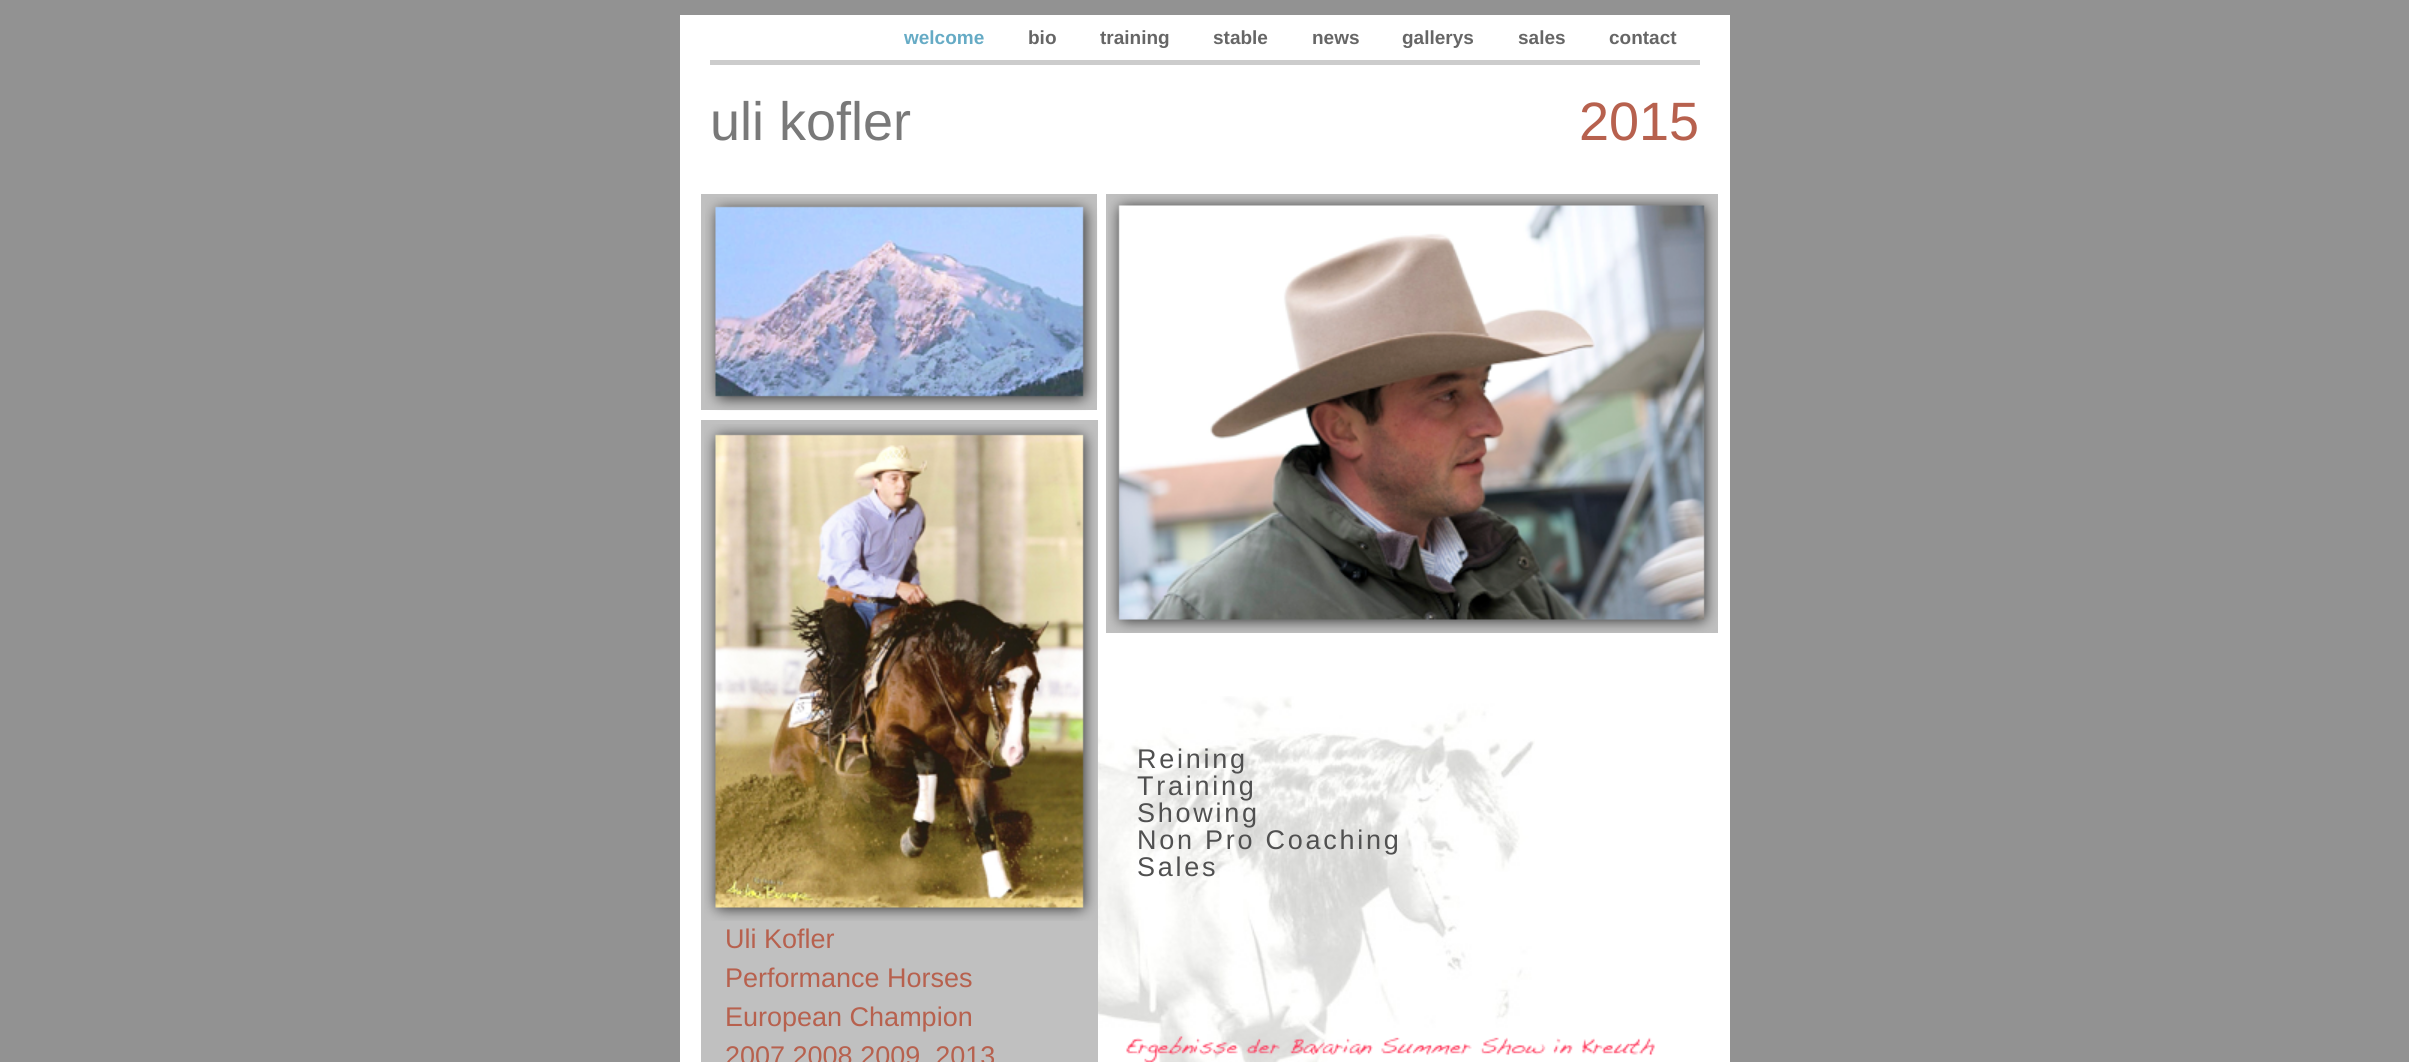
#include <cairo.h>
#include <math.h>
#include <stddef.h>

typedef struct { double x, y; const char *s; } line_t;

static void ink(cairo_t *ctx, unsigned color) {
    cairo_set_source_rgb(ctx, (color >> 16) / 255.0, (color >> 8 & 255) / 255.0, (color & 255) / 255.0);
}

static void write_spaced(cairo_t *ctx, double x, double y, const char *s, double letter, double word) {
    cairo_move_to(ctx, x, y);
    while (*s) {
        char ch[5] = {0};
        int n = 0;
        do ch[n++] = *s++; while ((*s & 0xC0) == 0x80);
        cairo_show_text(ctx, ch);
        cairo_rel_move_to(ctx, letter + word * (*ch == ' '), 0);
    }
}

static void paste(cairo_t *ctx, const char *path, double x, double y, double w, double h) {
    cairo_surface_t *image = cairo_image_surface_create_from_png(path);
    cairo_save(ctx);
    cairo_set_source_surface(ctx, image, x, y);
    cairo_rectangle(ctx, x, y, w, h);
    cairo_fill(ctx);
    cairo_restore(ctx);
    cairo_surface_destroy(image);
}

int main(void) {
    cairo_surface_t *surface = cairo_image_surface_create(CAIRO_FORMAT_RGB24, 2409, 1062);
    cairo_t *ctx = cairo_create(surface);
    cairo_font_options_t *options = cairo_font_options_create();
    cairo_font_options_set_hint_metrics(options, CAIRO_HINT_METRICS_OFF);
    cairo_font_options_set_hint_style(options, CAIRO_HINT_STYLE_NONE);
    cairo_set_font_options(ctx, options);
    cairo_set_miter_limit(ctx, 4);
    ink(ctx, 0x929292);
    cairo_paint(ctx);
    ink(ctx, 0xFFFFFF);
    cairo_rectangle(ctx, 680, 15, 1050, 1047);
    cairo_fill(ctx);
    ink(ctx, 0xCCCCCC);
    cairo_rectangle(ctx, 710, 60, 990, 5);
    cairo_fill(ctx);
    cairo_select_font_face(ctx, "Liberation Sans", CAIRO_FONT_SLANT_NORMAL, CAIRO_FONT_WEIGHT_BOLD);
    cairo_set_font_size(ctx, 19);
    ink(ctx, 0x66ABC5);
    cairo_move_to(ctx, 904, 44);
    cairo_show_text(ctx, "welcome");
    ink(ctx, 0x666666);
    {
        static const line_t items[] = {
            {1028, 44, "bio"},
            {1100, 44, "training"},
            {1213, 44, "stable"},
            {1312, 44, "news"},
            {1402, 44, "gallerys"},
            {1518, 44, "sales"},
            {1609, 44, "contact"},
        };
        for (size_t i = 0; i < sizeof items / sizeof *items; i++) {
            cairo_move_to(ctx, items[i].x, items[i].y);
            cairo_show_text(ctx, items[i].s);
        }
    }
    cairo_select_font_face(ctx, "Liberation Sans", CAIRO_FONT_SLANT_NORMAL, CAIRO_FONT_WEIGHT_NORMAL);
    cairo_set_font_size(ctx, 54);
    ink(ctx, 0x797979);
    cairo_move_to(ctx, 710, 140);
    cairo_show_text(ctx, "uli kofler");
    ink(ctx, 0xB7614E);
    cairo_move_to(ctx, 1579, 140);
    cairo_show_text(ctx, "2015");
    ink(ctx, 0xC0C0C0);
    cairo_rectangle(ctx, 701, 194, 396, 216);
    cairo_fill(ctx);
    cairo_rectangle(ctx, 1106, 194, 612, 439);
    cairo_fill(ctx);
    paste(ctx, "media/1.png", 705, 197, 393, 214);
    paste(ctx, "media/2.png", 1108, 194, 610, 439);
    cairo_rectangle(ctx, 701, 420, 397, 642);
    cairo_fill(ctx);
    paste(ctx, "media/3.png", 704, 424, 393, 497);
    paste(ctx, "media/4.png", 1098, 696, 437, 366);
    cairo_set_font_size(ctx, 27);
    ink(ctx, 0x505050);
    {
        static const line_t items[] = {
            {1137, 768, "Reining"},
            {1137, 795, "Training"},
            {1137, 822, "Showing"},
            {1137, 849, "Non Pro Coaching"},
            {1137, 876, "Sales"},
        };
        for (size_t i = 0; i < sizeof items / sizeof *items; i++) {
            write_spaced(ctx, items[i].x, items[i].y, items[i].s, 2.75, 0);
        }
    }
    ink(ctx, 0xB7614E);
    {
        static const line_t items[] = {
            {725, 948, "Uli Kofler"},
            {725, 987, "Performance Horses"},
            {725, 1026, "European Champion"},
            {725, 1065, "2007 2008 2009  2013"},
        };
        for (size_t i = 0; i < sizeof items / sizeof *items; i++) {
            cairo_move_to(ctx, items[i].x, items[i].y);
            cairo_show_text(ctx, items[i].s);
        }
    }
    paste(ctx, "media/5.png", 1126, 1036, 529, 26);
    cairo_surface_write_to_png(surface, "image.png");
    cairo_font_options_destroy(options);
    cairo_destroy(ctx);
    cairo_surface_destroy(surface);
    return 0;
}
